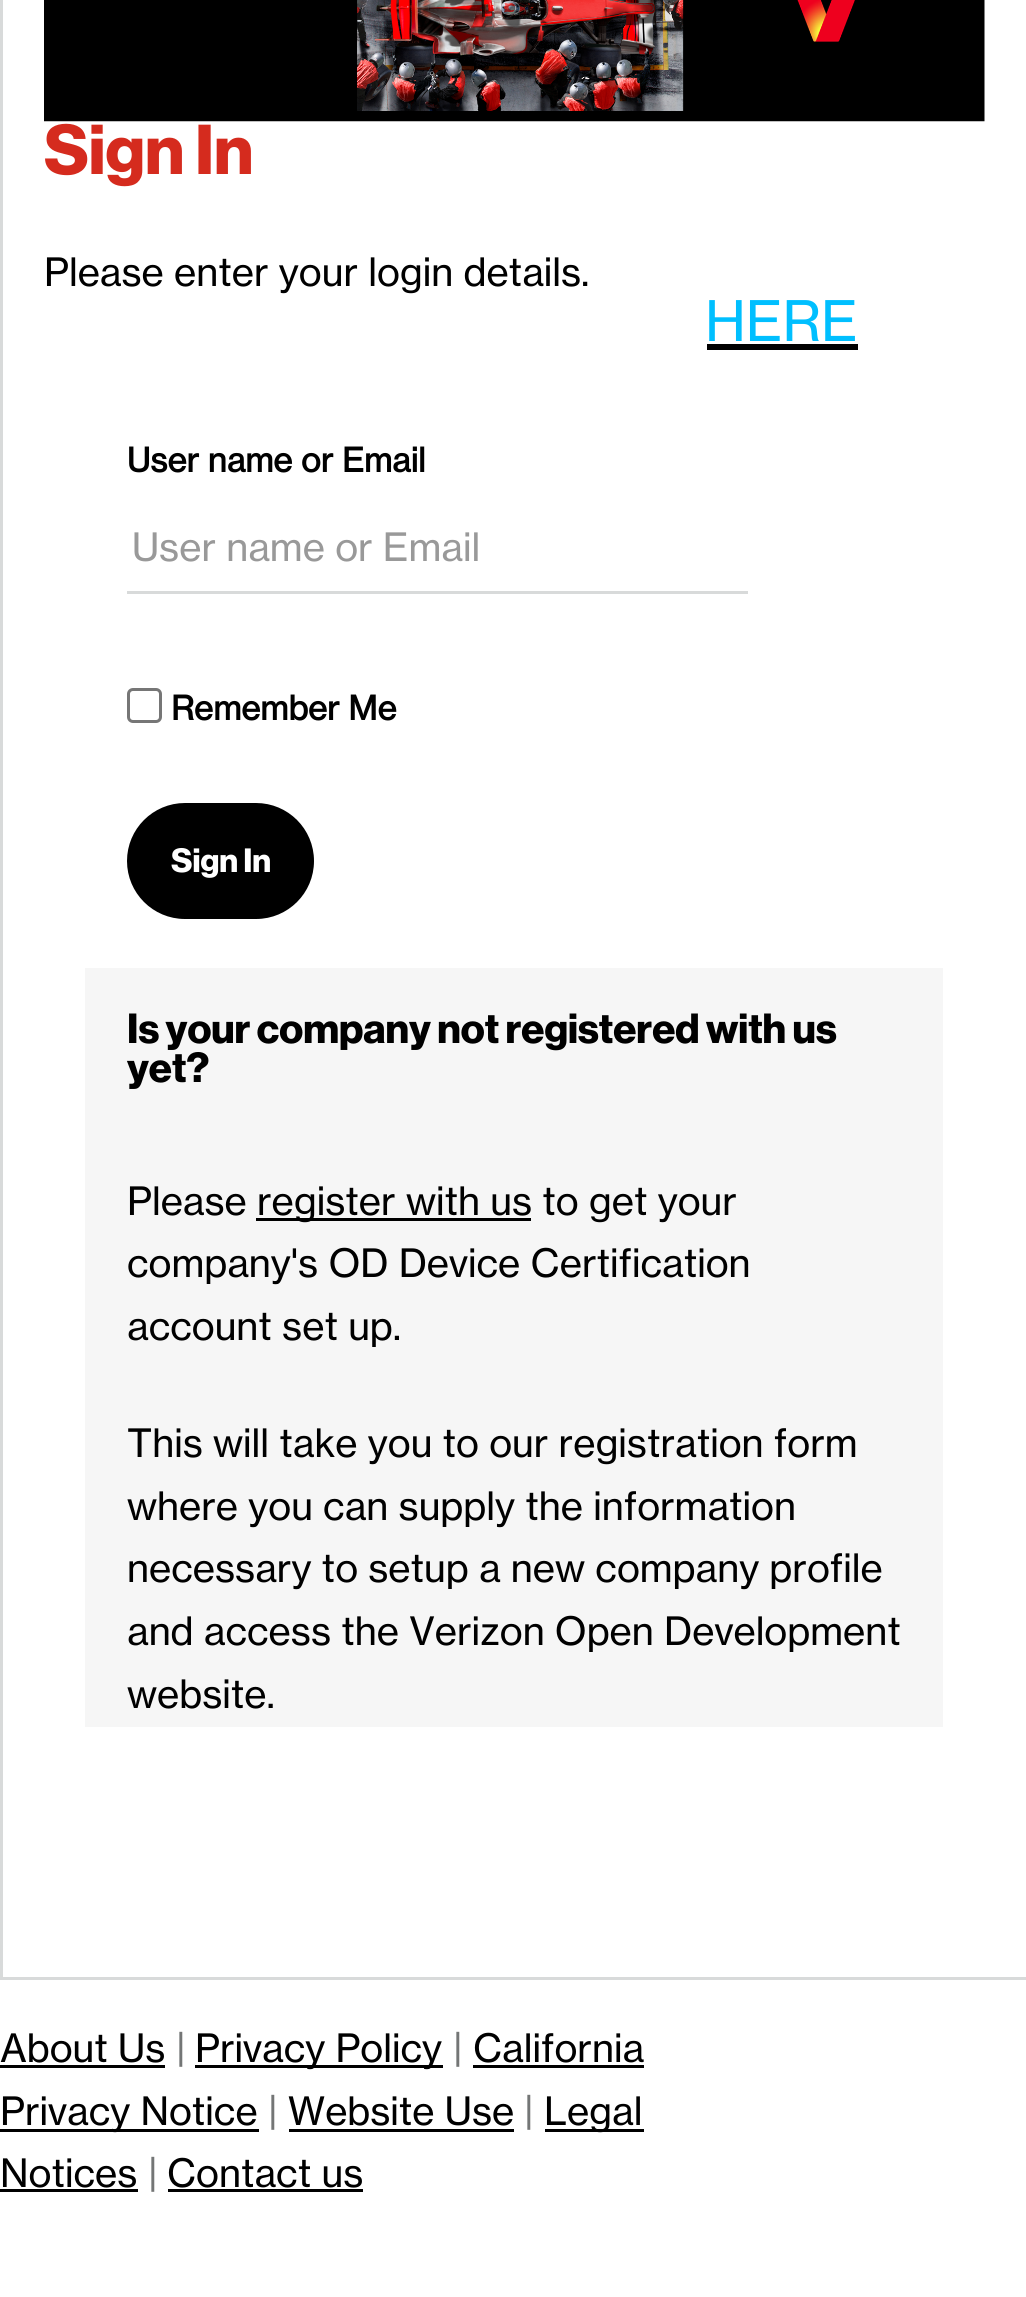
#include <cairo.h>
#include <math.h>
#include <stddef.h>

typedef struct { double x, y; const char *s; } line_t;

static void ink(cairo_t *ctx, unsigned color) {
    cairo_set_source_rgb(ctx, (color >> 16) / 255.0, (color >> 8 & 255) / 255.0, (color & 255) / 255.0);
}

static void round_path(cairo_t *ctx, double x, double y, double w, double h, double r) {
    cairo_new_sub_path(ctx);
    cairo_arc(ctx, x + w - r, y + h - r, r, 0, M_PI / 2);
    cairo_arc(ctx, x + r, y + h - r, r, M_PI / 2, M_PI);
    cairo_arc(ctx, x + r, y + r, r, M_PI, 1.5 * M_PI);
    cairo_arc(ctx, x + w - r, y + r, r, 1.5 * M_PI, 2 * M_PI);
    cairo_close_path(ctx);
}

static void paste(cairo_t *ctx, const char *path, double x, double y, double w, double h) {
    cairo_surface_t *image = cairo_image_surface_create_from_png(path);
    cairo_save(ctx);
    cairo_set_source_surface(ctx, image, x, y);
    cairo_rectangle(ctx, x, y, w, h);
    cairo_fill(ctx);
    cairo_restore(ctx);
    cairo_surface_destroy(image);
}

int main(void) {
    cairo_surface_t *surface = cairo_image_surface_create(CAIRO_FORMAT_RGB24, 1026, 2297);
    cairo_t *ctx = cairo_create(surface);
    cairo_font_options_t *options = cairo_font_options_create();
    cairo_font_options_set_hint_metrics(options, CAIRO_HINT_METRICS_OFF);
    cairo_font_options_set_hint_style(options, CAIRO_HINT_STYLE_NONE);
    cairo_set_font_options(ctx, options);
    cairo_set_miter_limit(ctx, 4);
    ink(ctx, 0xFFFFFF);
    cairo_paint(ctx);
    ink(ctx, 0xD8DADA);
    cairo_rectangle(ctx, 0, 1977, 1026, 3);
    cairo_fill(ctx);
    cairo_rectangle(ctx, 0, 0, 3, 1980);
    cairo_fill(ctx);
    paste(ctx, "media/1.png", 44, 0, 941, 122);
    cairo_select_font_face(ctx, "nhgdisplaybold", CAIRO_FONT_SLANT_NORMAL, CAIRO_FONT_WEIGHT_BOLD);
    cairo_set_font_size(ctx, 69);
    ink(ctx, 0xD52B1E);
    cairo_move_to(ctx, 44, 174);
    cairo_show_text(ctx, "Sign In");
    cairo_select_font_face(ctx, "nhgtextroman", CAIRO_FONT_SLANT_NORMAL, CAIRO_FONT_WEIGHT_NORMAL);
    cairo_set_font_size(ctx, 38.5);
    ink(ctx, 0x000000);
    cairo_move_to(ctx, 44, 286);
    cairo_show_text(ctx, "Please enter your login details.");
    cairo_set_font_size(ctx, 55);
    ink(ctx, 0x00BFFF);
    cairo_move_to(ctx, 705, 341);
    cairo_show_text(ctx, "HERE");
    ink(ctx, 0x000000);
    cairo_rectangle(ctx, 707, 344, 151, 6);
    cairo_fill(ctx);
    cairo_select_font_face(ctx, "nhgtextroman", CAIRO_FONT_SLANT_NORMAL, CAIRO_FONT_WEIGHT_BOLD);
    cairo_set_font_size(ctx, 33);
    cairo_move_to(ctx, 127, 472);
    cairo_show_text(ctx, "User name or Email");
    ink(ctx, 0xD8DADA);
    cairo_rectangle(ctx, 127, 591, 621, 3);
    cairo_fill(ctx);
    cairo_select_font_face(ctx, "nhgtextroman", CAIRO_FONT_SLANT_NORMAL, CAIRO_FONT_WEIGHT_NORMAL);
    cairo_set_font_size(ctx, 38.5);
    ink(ctx, 0x999999);
    cairo_move_to(ctx, 132, 561);
    cairo_show_text(ctx, "User name or Email");
    round_path(ctx, 128.5, 689.5, 32, 32, 4.5);
    ink(ctx, 0x767676);
    cairo_set_line_width(ctx, 3);
    cairo_stroke(ctx);
    cairo_select_font_face(ctx, "nhgtextroman", CAIRO_FONT_SLANT_NORMAL, CAIRO_FONT_WEIGHT_BOLD);
    cairo_set_font_size(ctx, 33);
    ink(ctx, 0x000000);
    cairo_move_to(ctx, 171, 720);
    cairo_show_text(ctx, "Remember Me");
    round_path(ctx, 128.5, 804.5, 184, 113, 56.5);
    cairo_fill_preserve(ctx);
    cairo_stroke(ctx);
    cairo_select_font_face(ctx, "nhgdisplaybold", CAIRO_FONT_SLANT_NORMAL, CAIRO_FONT_WEIGHT_BOLD);
    ink(ctx, 0xFFFFFF);
    cairo_move_to(ctx, 171, 872);
    cairo_show_text(ctx, "Sign In");
    ink(ctx, 0xF6F6F6);
    cairo_rectangle(ctx, 85, 968, 858, 759);
    cairo_fill(ctx);
    cairo_set_font_size(ctx, 41.25);
    ink(ctx, 0x000000);
    cairo_move_to(ctx, 127, 1043);
    cairo_show_text(ctx, "Is your company not registered with us");
    cairo_move_to(ctx, 127, 1082);
    cairo_show_text(ctx, "yet?");
    cairo_select_font_face(ctx, "nhgtextroman", CAIRO_FONT_SLANT_NORMAL, CAIRO_FONT_WEIGHT_NORMAL);
    cairo_set_font_size(ctx, 38.5);
    cairo_move_to(ctx, 127, 1215);
    cairo_show_text(ctx, "Please");
    cairo_rectangle(ctx, 256, 1218, 275, 3);
    cairo_fill(ctx);
    {
        static const line_t items[] = {
            {257, 1215, "register with us to get your"},
            {127, 1277, "company's OD Device Certification"},
            {127, 1340, "account set up."},
            {127, 1457, "This will take you to our registration form"},
            {127, 1520, "where you can supply the information"},
            {127, 1582, "necessary to setup a new company profile"},
            {127, 1645, "and access the Verizon Open Development"},
            {127, 1708, "website."},
            {0, 2062, "About Us"},
        };
        for (size_t i = 0; i < sizeof items / sizeof *items; i++) {
            cairo_move_to(ctx, items[i].x, items[i].y);
            cairo_show_text(ctx, items[i].s);
        }
    }
    cairo_rectangle(ctx, 0, 2065, 165, 3);
    cairo_fill(ctx);
    ink(ctx, 0x747676);
    cairo_move_to(ctx, 176, 2062);
    cairo_show_text(ctx, "|");
    ink(ctx, 0x000000);
    cairo_rectangle(ctx, 195, 2065, 248, 3);
    cairo_fill(ctx);
    cairo_move_to(ctx, 195, 2062);
    cairo_show_text(ctx, "Privacy Policy");
    ink(ctx, 0x747676);
    cairo_move_to(ctx, 453, 2062);
    cairo_show_text(ctx, "|");
    ink(ctx, 0x000000);
    cairo_move_to(ctx, 473, 2062);
    cairo_show_text(ctx, "California");
    cairo_rectangle(ctx, 473, 2065, 171, 3);
    cairo_fill(ctx);
    cairo_rectangle(ctx, 0, 2129, 259, 3);
    cairo_fill(ctx);
    cairo_move_to(ctx, 0, 2125);
    cairo_show_text(ctx, "Privacy Notice");
    ink(ctx, 0x747676);
    cairo_move_to(ctx, 268, 2125);
    cairo_show_text(ctx, "|");
    ink(ctx, 0x000000);
    cairo_move_to(ctx, 288, 2125);
    cairo_show_text(ctx, "Website Use");
    cairo_rectangle(ctx, 289, 2129, 225, 3);
    cairo_fill(ctx);
    ink(ctx, 0x747676);
    cairo_move_to(ctx, 524, 2125);
    cairo_show_text(ctx, "|");
    ink(ctx, 0x000000);
    cairo_rectangle(ctx, 545, 2129, 99, 3);
    cairo_fill(ctx);
    cairo_move_to(ctx, 544, 2125);
    cairo_show_text(ctx, "Legal");
    cairo_move_to(ctx, 0, 2187);
    cairo_show_text(ctx, "Notices");
    cairo_rectangle(ctx, 0, 2189, 138, 3);
    cairo_fill(ctx);
    ink(ctx, 0x747676);
    cairo_move_to(ctx, 148, 2187);
    cairo_show_text(ctx, "|");
    ink(ctx, 0x000000);
    cairo_move_to(ctx, 167, 2187);
    cairo_show_text(ctx, "Contact us");
    cairo_rectangle(ctx, 168, 2189, 195, 3);
    cairo_fill(ctx);
    cairo_surface_write_to_png(surface, "image.png");
    cairo_font_options_destroy(options);
    cairo_destroy(ctx);
    cairo_surface_destroy(surface);
    return 0;
}
